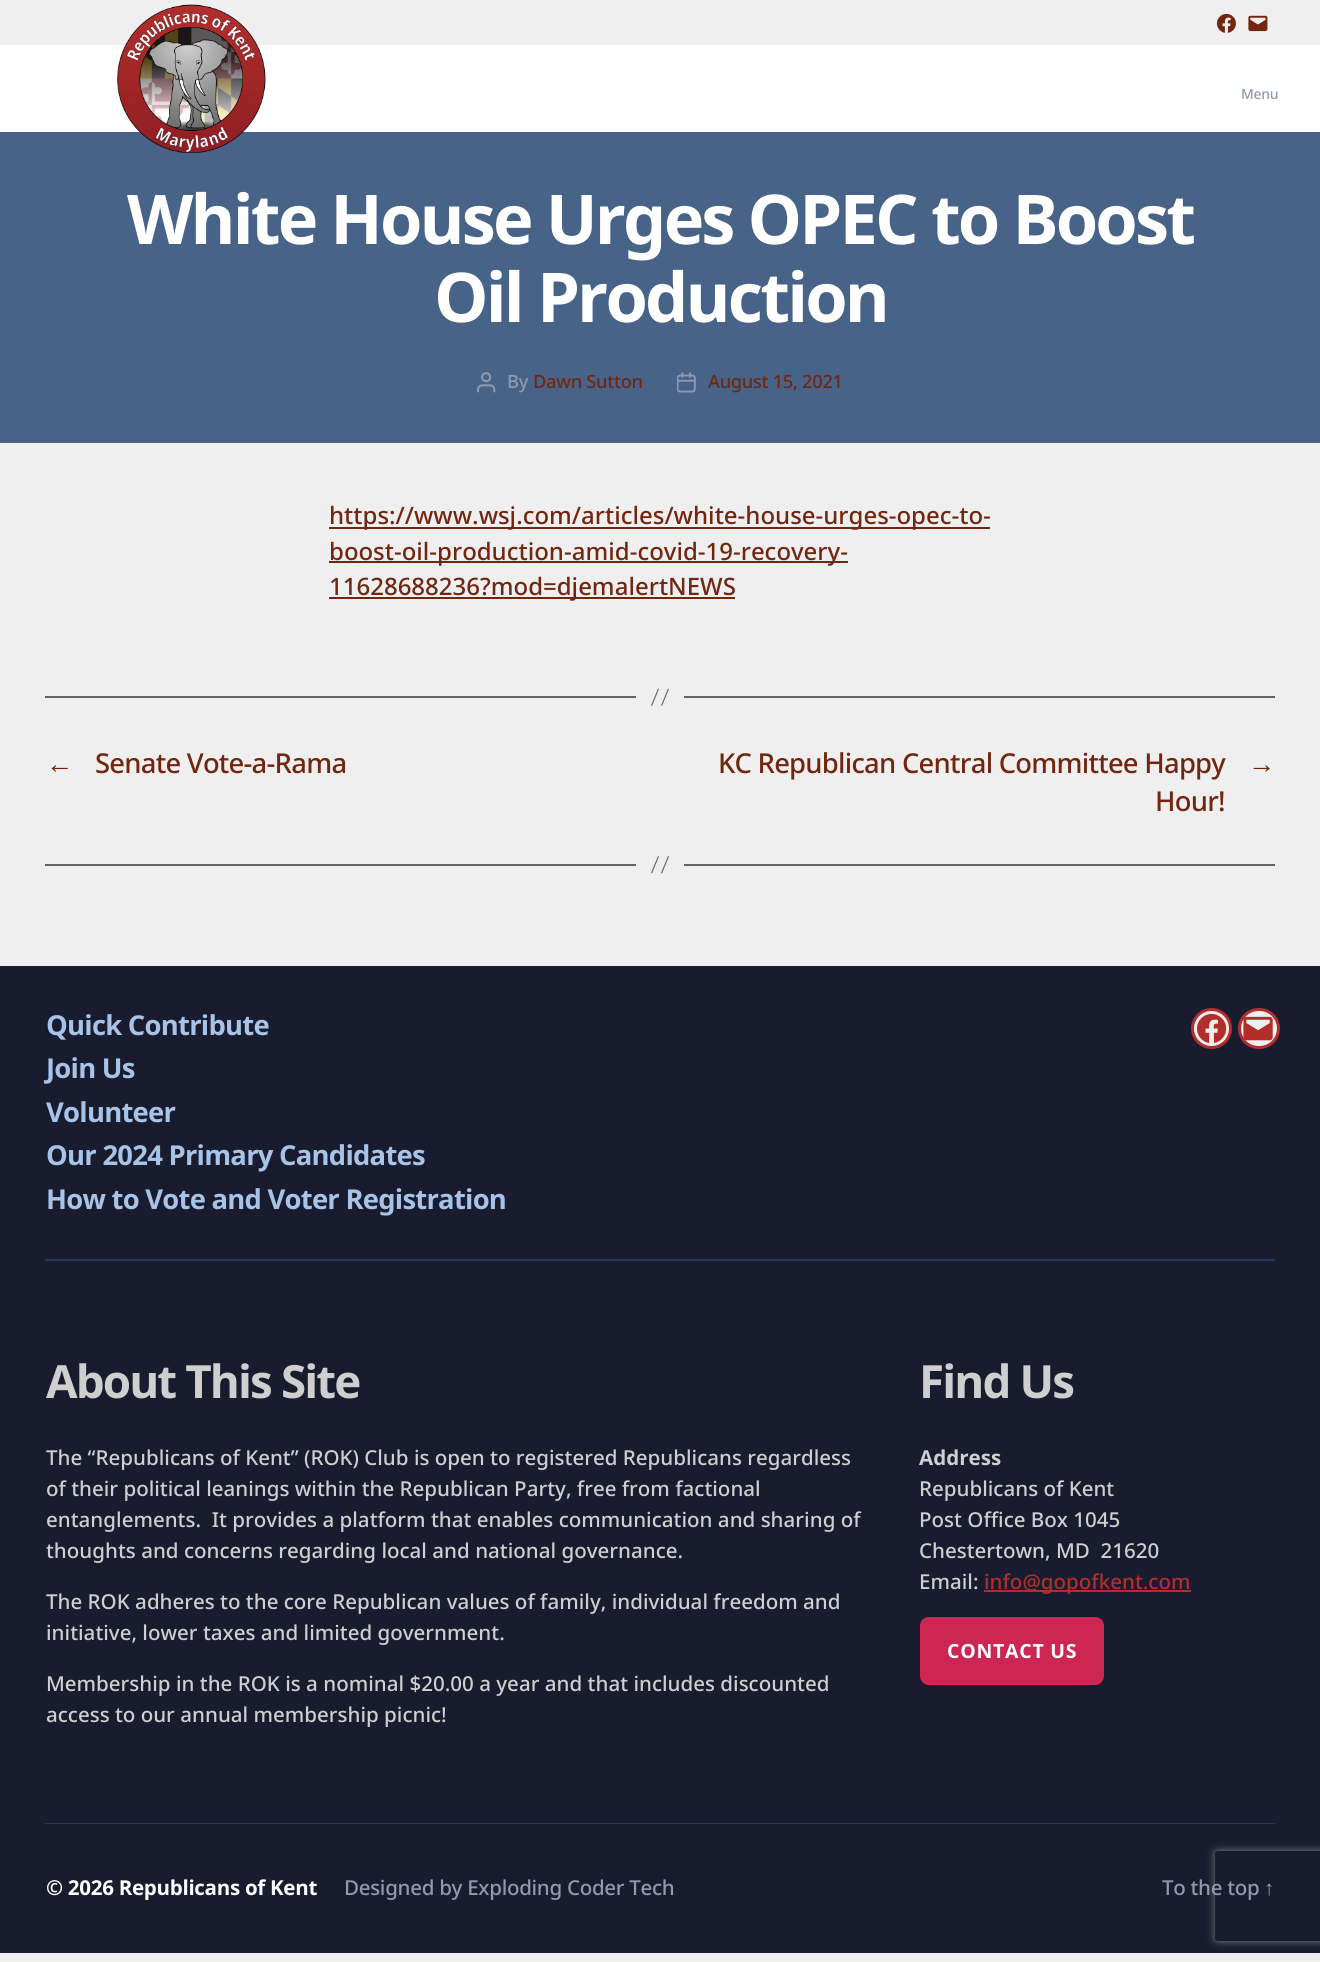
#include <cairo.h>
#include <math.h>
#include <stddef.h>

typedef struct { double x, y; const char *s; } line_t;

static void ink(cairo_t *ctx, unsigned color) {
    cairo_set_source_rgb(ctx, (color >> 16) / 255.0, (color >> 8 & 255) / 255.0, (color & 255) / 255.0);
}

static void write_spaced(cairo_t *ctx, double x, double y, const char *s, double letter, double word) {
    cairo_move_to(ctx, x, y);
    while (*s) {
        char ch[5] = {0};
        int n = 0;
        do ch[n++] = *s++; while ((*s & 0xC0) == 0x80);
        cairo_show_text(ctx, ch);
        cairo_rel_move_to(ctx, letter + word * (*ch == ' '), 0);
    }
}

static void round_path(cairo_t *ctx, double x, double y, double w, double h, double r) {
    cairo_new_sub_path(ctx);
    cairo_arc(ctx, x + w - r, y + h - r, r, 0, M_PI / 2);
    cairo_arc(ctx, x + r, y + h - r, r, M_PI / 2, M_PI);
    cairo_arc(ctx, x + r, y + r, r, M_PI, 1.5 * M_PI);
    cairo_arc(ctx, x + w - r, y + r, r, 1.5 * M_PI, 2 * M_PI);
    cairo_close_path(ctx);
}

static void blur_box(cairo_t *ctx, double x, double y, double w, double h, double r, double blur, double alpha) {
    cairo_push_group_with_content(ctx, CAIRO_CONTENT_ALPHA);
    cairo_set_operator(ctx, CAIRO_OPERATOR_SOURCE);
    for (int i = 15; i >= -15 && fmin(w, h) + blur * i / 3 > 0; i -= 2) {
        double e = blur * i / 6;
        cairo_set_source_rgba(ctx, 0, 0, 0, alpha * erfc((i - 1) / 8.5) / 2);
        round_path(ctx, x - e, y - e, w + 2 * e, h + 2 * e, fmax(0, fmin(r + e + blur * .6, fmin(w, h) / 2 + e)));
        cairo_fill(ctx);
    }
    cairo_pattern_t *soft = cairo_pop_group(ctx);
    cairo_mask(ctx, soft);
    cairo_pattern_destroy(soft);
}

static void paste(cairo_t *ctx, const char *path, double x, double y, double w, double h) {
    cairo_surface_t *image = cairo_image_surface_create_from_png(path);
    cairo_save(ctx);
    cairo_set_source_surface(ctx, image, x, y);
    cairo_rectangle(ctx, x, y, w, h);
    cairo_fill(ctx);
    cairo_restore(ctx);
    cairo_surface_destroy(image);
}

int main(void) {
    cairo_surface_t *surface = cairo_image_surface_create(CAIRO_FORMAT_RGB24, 1320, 1962);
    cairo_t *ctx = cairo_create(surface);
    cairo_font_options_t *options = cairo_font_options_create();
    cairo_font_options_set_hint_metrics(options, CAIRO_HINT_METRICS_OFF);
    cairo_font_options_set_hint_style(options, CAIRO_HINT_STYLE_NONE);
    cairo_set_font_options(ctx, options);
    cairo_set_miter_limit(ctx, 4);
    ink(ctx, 0xEFEFEF);
    cairo_paint(ctx);
    ink(ctx, 0xFFFFFF);
    cairo_rectangle(ctx, 0, 45, 1320, 87);
    cairo_fill(ctx);
    ink(ctx, 0x476388);
    cairo_rectangle(ctx, 0, 132, 1320, 311);
    cairo_fill(ctx);
    paste(ctx, "media/1.png", 117, 4, 149, 150);
    paste(ctx, "media/2.png", 1216, 13, 20, 20);
    paste(ctx, "media/3.png", 1248, 15, 20, 17);
    cairo_select_font_face(ctx, "Noto Sans Medium", CAIRO_FONT_SLANT_NORMAL, CAIRO_FONT_WEIGHT_NORMAL);
    cairo_set_font_size(ctx, 14);
    ink(ctx, 0x9299AF);
    write_spaced(ctx, 1241, 99, "Menu", -0.3, 0);
    cairo_select_font_face(ctx, "Noto Sans", CAIRO_FONT_SLANT_NORMAL, CAIRO_FONT_WEIGHT_BOLD);
    cairo_set_font_size(ctx, 68.6);
    ink(ctx, 0xFFFFFF);
    write_spaced(ctx, 127, 244, "White House Urges OPEC to Boost", -2.85, 0);
    write_spaced(ctx, 434, 322, "Oil Production", -2.85, 0);
    paste(ctx, "media/4.png", 477, 372, 19, 21);
    cairo_select_font_face(ctx, "Noto Sans Medium", CAIRO_FONT_SLANT_NORMAL, CAIRO_FONT_WEIGHT_NORMAL);
    cairo_set_font_size(ctx, 18.25);
    ink(ctx, 0x9299AF);
    write_spaced(ctx, 507, 388, "By", -0.3, 0);
    ink(ctx, 0x72250F);
    write_spaced(ctx, 533, 388, "Dawn Sutton", -0.3, 0);
    paste(ctx, "media/5.png", 677, 372, 19, 21);
    write_spaced(ctx, 708, 388, "August 15, 2021", -0.3, 0);
    cairo_rectangle(ctx, 329, 527, 661, 2);
    cairo_fill(ctx);
    cairo_set_font_size(ctx, 24);
    cairo_move_to(ctx, 329, 524);
    cairo_show_text(ctx, "https://www.wsj.com/articles/white-house-urges-opec-to-");
    cairo_rectangle(ctx, 329, 561, 519, 2);
    cairo_fill(ctx);
    cairo_move_to(ctx, 329, 560);
    cairo_show_text(ctx, "boost-oil-production-amid-covid-19-recovery-");
    cairo_rectangle(ctx, 329, 597, 406, 2);
    cairo_fill(ctx);
    cairo_move_to(ctx, 329, 595);
    cairo_show_text(ctx, "11628688236?mod=djemalertNEWS");
    ink(ctx, 0x636363);
    cairo_rectangle(ctx, 684, 696, 591, 2);
    cairo_fill(ctx);
    cairo_rectangle(ctx, 45, 696, 591, 2);
    cairo_fill(ctx);
    cairo_new_path(ctx);
    cairo_move_to(ctx, 658, 688.5);
    cairo_line_to(ctx, 659, 689);
    cairo_line_to(ctx, 652, 706);
    cairo_line_to(ctx, 651, 705.5);
    cairo_close_path(ctx);
    cairo_move_to(ctx, 668, 688.5);
    cairo_line_to(ctx, 669, 689);
    cairo_line_to(ctx, 662, 706);
    cairo_line_to(ctx, 661, 705.5);
    cairo_close_path(ctx);
    cairo_fill(ctx);
    cairo_select_font_face(ctx, "Liberation Sans", CAIRO_FONT_SLANT_NORMAL, CAIRO_FONT_WEIGHT_BOLD);
    cairo_set_font_size(ctx, 27.4);
    ink(ctx, 0x72250F);
    write_spaced(ctx, 46, 773, "←", -0.75, 0);
    cairo_select_font_face(ctx, "Noto Sans Medium", CAIRO_FONT_SLANT_NORMAL, CAIRO_FONT_WEIGHT_NORMAL);
    {
        static const line_t items[] = {
            {95, 773, "Senate Vote-a-Rama"},
            {718, 773, "KC Republican Central Committee Happy"},
            {1155, 811, "Hour!"},
        };
        for (size_t i = 0; i < sizeof items / sizeof *items; i++) {
            write_spaced(ctx, items[i].x, items[i].y, items[i].s, -0.75, 0);
        }
    }
    cairo_select_font_face(ctx, "Liberation Sans", CAIRO_FONT_SLANT_NORMAL, CAIRO_FONT_WEIGHT_BOLD);
    write_spaced(ctx, 1248, 773, "→", -0.75, 0);
    ink(ctx, 0x636363);
    cairo_rectangle(ctx, 684, 864, 591, 2);
    cairo_fill(ctx);
    cairo_rectangle(ctx, 45, 864, 591, 2);
    cairo_fill(ctx);
    cairo_new_path(ctx);
    cairo_move_to(ctx, 658, 856);
    cairo_line_to(ctx, 659, 856.5);
    cairo_line_to(ctx, 652, 873.5);
    cairo_line_to(ctx, 651, 873);
    cairo_close_path(ctx);
    cairo_move_to(ctx, 668, 856);
    cairo_line_to(ctx, 669, 856.5);
    cairo_line_to(ctx, 662, 873.5);
    cairo_line_to(ctx, 661, 873);
    cairo_close_path(ctx);
    cairo_fill(ctx);
    ink(ctx, 0x191C2F);
    cairo_rectangle(ctx, 0, 966, 1320, 987);
    cairo_fill(ctx);
    ink(ctx, 0x293360);
    cairo_rectangle(ctx, 45, 1259, 1230, 2);
    cairo_fill(ctx);
    cairo_select_font_face(ctx, "Noto Sans", CAIRO_FONT_SLANT_NORMAL, CAIRO_FONT_WEIGHT_BOLD);
    ink(ctx, 0xA7C3E8);
    {
        static const line_t items[] = {
            {46, 1035, "Quick Contribute"},
            {46, 1078, "Join Us"},
            {46, 1122, "Volunteer"},
            {46, 1165, "Our 2024 Primary Candidates"},
            {46, 1209, "How to Vote and Voter Registration"},
        };
        for (size_t i = 0; i < sizeof items / sizeof *items; i++) {
            write_spaced(ctx, items[i].x, items[i].y, items[i].s, -0.75, 0);
        }
    }
    ink(ctx, 0xEFEFEF);
    cairo_new_path(ctx);
    cairo_arc(ctx, 1211.5, 1028.5, 19, 0, 2 * M_PI);
    cairo_fill_preserve(ctx);
    ink(ctx, 0xB32E2B);
    cairo_set_line_width(ctx, 3);
    cairo_stroke(ctx);
    paste(ctx, "media/6.png", 1196, 1013, 31, 30);
    ink(ctx, 0xEFEFEF);
    round_path(ctx, 1239.5, 1009.5, 39, 38, 19);
    cairo_fill_preserve(ctx);
    ink(ctx, 0xB32E2B);
    cairo_stroke(ctx);
    paste(ctx, "media/7.png", 1243, 1016, 30, 25);
    ink(ctx, 0x293360);
    cairo_rectangle(ctx, 45, 1823, 1230, 1);
    cairo_fill(ctx);
    cairo_set_font_size(ctx, 45.75);
    ink(ctx, 0xCFCFCF);
    write_spaced(ctx, 46, 1398, "About This Site", -1.9, 0);
    cairo_select_font_face(ctx, "Noto Sans Medium", CAIRO_FONT_SLANT_NORMAL, CAIRO_FONT_WEIGHT_NORMAL);
    cairo_set_font_size(ctx, 20.55);
    {
        static const line_t items[] = {
            {46, 1465, "The “Republicans of Kent” (ROK) Club is open to registered Republicans regardless"},
            {46, 1496, "of their political leanings within the Republican Party, free from factional"},
            {46, 1527, "entanglements.  It provides a platform that enables communication and sharing of"},
            {46, 1558, "thoughts and concerns regarding local and national governance."},
            {46, 1609, "The ROK adheres to the core Republican values of family, individual freedom and"},
            {46, 1640, "initiative, lower taxes and limited government."},
            {46, 1691, "Membership in the ROK is a nominal $20.00 a year and that includes discounted"},
            {46, 1722, "access to our annual membership picnic!"},
        };
        for (size_t i = 0; i < sizeof items / sizeof *items; i++) {
            cairo_move_to(ctx, items[i].x, items[i].y);
            cairo_show_text(ctx, items[i].s);
        }
    }
    cairo_select_font_face(ctx, "Noto Sans", CAIRO_FONT_SLANT_NORMAL, CAIRO_FONT_WEIGHT_BOLD);
    cairo_set_font_size(ctx, 45.75);
    write_spaced(ctx, 919, 1398, "Find Us", -1.9, 0);
    cairo_set_font_size(ctx, 20.55);
    cairo_move_to(ctx, 919, 1465);
    cairo_show_text(ctx, "Address");
    cairo_select_font_face(ctx, "Noto Sans Medium", CAIRO_FONT_SLANT_NORMAL, CAIRO_FONT_WEIGHT_NORMAL);
    {
        static const line_t items[] = {
            {919, 1496, "Republicans of Kent"},
            {919, 1527, "Post Office Box 1045"},
            {919, 1558, "Chestertown, MD  21620"},
            {919, 1589, "Email:"},
        };
        for (size_t i = 0; i < sizeof items / sizeof *items; i++) {
            cairo_move_to(ctx, items[i].x, items[i].y);
            cairo_show_text(ctx, items[i].s);
        }
    }
    ink(ctx, 0xB32E2B);
    cairo_rectangle(ctx, 984, 1590, 207, 2);
    cairo_fill(ctx);
    cairo_move_to(ctx, 984, 1589);
    cairo_show_text(ctx, "info@gopofkent.com");
    ink(ctx, 0xCD2653);
    round_path(ctx, 920, 1617, 184, 68, 9);
    cairo_fill(ctx);
    cairo_select_font_face(ctx, "Noto Sans", CAIRO_FONT_SLANT_NORMAL, CAIRO_FONT_WEIGHT_BOLD);
    cairo_set_font_size(ctx, 19.5);
    ink(ctx, 0xFFFFFF);
    write_spaced(ctx, 947, 1658, "CONTACT US", 0.75, 0);
    cairo_save(ctx);
    cairo_set_fill_rule(ctx, CAIRO_FILL_RULE_EVEN_ODD);
    cairo_new_path(ctx);
    cairo_move_to(ctx, 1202, 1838);
    cairo_line_to(ctx, 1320, 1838);
    cairo_line_to(ctx, 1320, 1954);
    cairo_line_to(ctx, 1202, 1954);
    cairo_close_path(ctx);
    cairo_move_to(ctx, 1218, 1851);
    cairo_line_to(ctx, 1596, 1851);
    cairo_curve_to(ctx, 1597.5, 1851, 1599, 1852.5, 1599, 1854);
    cairo_line_to(ctx, 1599, 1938);
    cairo_curve_to(ctx, 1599, 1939.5, 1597.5, 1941, 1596, 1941);
    cairo_line_to(ctx, 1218, 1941);
    cairo_curve_to(ctx, 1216.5, 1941, 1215, 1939.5, 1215, 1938);
    cairo_line_to(ctx, 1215, 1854);
    cairo_curve_to(ctx, 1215, 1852.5, 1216.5, 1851, 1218, 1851);
    cairo_close_path(ctx);
    cairo_clip(ctx);
    ink(ctx, 0x808080);
    blur_box(ctx, 1215, 1851, 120, 90, 3, 4, 1);
    cairo_restore(ctx);
    cairo_set_font_size(ctx, 20.55);
    write_spaced(ctx, 46, 1895, "© 2026 Republicans of Kent", -0.3, 0);
    cairo_select_font_face(ctx, "Noto Sans Medium", CAIRO_FONT_SLANT_NORMAL, CAIRO_FONT_WEIGHT_NORMAL);
    ink(ctx, 0x9299AF);
    write_spaced(ctx, 344, 1895, "Designed by Exploding Coder Tech", -0.3, 0);
    write_spaced(ctx, 1162, 1895, "To the top", -0.3, 0);
    cairo_select_font_face(ctx, "Liberation Sans", CAIRO_FONT_SLANT_NORMAL, CAIRO_FONT_WEIGHT_NORMAL);
    write_spaced(ctx, 1264, 1895, "↑", -0.3, 0);
    cairo_surface_write_to_png(surface, "image.png");
    cairo_font_options_destroy(options);
    cairo_destroy(ctx);
    cairo_surface_destroy(surface);
    return 0;
}
